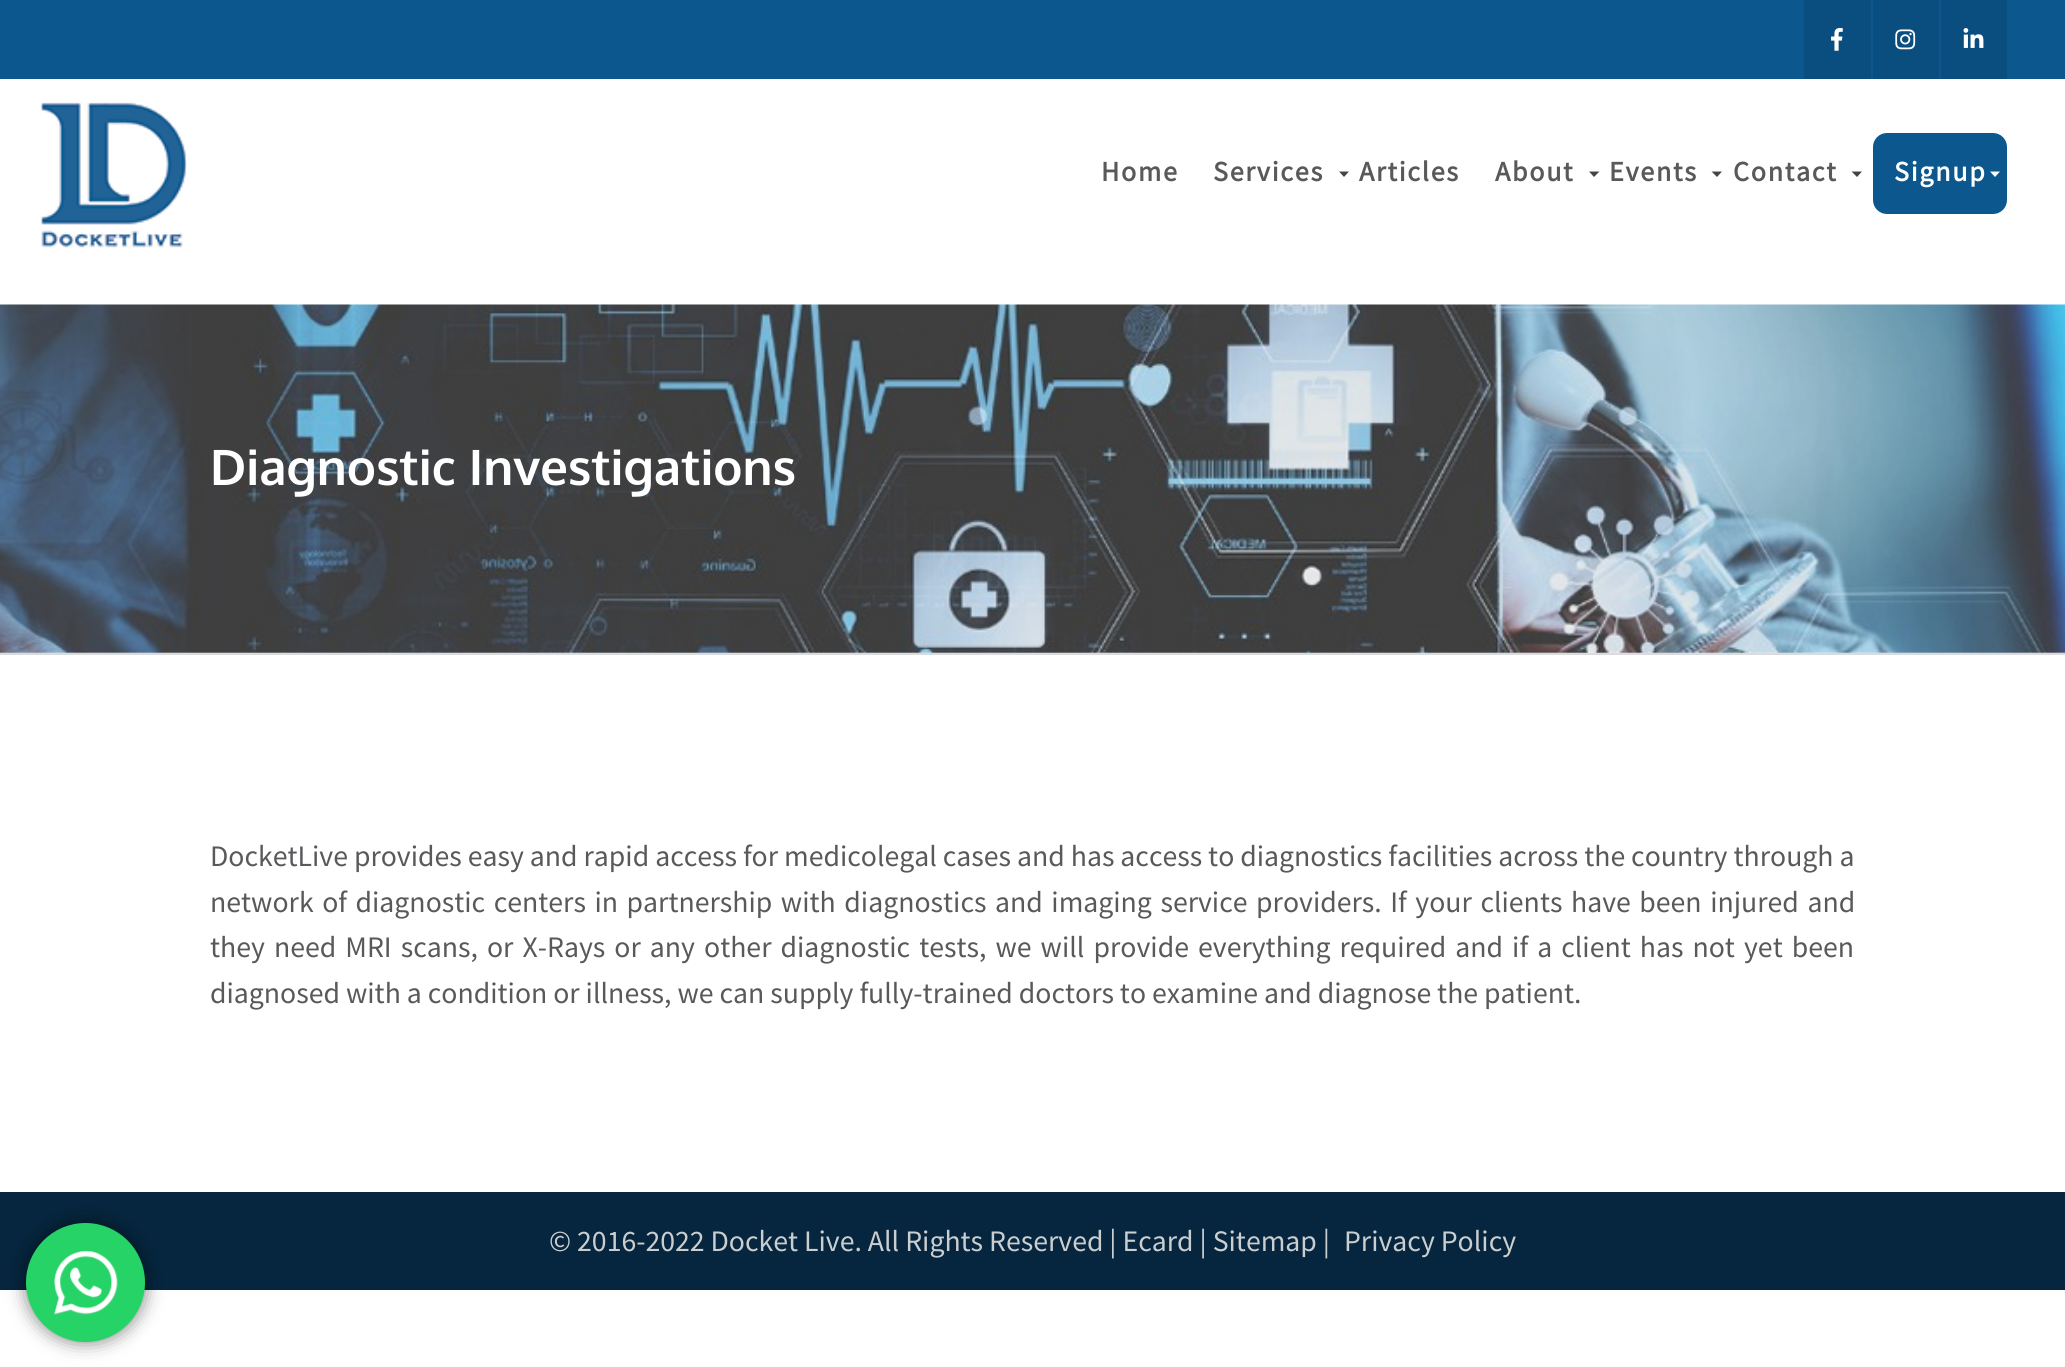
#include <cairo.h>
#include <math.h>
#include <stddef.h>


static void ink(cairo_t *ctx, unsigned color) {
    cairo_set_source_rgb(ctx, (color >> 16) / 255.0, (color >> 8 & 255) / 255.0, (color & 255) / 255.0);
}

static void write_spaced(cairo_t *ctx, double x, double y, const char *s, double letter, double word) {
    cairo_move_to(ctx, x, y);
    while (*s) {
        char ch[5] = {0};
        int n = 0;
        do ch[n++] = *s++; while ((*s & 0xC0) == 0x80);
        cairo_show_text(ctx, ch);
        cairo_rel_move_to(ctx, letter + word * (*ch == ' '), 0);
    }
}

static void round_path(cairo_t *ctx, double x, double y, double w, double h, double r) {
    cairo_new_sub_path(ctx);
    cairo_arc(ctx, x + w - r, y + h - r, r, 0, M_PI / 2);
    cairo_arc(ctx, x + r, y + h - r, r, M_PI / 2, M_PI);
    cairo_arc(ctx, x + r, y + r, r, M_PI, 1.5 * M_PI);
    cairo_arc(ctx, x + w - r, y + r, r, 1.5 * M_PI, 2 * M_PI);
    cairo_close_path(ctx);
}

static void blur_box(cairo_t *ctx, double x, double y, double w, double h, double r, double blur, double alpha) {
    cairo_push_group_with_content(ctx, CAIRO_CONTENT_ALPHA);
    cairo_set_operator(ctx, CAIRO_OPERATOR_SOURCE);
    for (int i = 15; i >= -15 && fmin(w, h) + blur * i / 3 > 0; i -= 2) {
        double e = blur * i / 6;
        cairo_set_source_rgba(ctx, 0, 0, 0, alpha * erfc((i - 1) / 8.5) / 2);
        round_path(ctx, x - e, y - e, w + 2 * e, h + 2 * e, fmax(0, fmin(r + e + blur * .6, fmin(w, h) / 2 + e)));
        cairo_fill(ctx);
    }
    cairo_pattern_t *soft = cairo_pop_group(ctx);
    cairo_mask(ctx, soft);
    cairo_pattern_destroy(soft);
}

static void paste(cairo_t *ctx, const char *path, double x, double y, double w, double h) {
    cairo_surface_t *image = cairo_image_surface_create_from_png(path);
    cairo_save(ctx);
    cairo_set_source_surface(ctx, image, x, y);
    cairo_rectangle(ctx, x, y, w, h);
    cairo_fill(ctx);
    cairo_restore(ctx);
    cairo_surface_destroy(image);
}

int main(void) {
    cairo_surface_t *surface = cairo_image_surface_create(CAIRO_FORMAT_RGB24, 2065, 1367);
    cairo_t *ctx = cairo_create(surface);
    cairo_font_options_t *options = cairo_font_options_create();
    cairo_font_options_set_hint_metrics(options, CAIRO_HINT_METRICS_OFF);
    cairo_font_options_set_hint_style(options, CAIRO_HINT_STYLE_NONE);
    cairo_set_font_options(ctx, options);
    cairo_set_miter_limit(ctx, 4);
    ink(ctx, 0xFFFFFF);
    cairo_paint(ctx);
    ink(ctx, 0x0B578E);
    cairo_rectangle(ctx, 0, 0, 2065, 79);
    cairo_fill(ctx);
    ink(ctx, 0x0A4E80);
    cairo_rectangle(ctx, 1804, 0, 67, 79);
    cairo_fill(ctx);
    paste(ctx, "media/1.png", 1831, 28, 12, 23);
    cairo_rectangle(ctx, 1873, 0, 66, 79);
    cairo_fill(ctx);
    paste(ctx, "media/2.png", 1895, 29, 21, 21);
    cairo_rectangle(ctx, 1941, 0, 66, 79);
    cairo_fill(ctx);
    paste(ctx, "media/3.png", 1963, 28, 21, 20);
    paste(ctx, "media/4.png", 40, 102, 147, 146);
    cairo_select_font_face(ctx, "Source Sans Pro", CAIRO_FONT_SLANT_NORMAL, CAIRO_FONT_WEIGHT_BOLD);
    cairo_set_font_size(ctx, 28);
    ink(ctx, 0x59595B);
    write_spaced(ctx, 1101, 181, "Home", 1.75, 0);
    write_spaced(ctx, 1213, 181, "Services", 1.75, 0);
    ink(ctx, 0x444444);
    cairo_new_path(ctx);
    cairo_move_to(ctx, 1339, 171.5);
    cairo_line_to(ctx, 1349, 171.5);
    cairo_line_to(ctx, 1344, 177);
    cairo_close_path(ctx);
    cairo_fill(ctx);
    ink(ctx, 0x59595B);
    write_spaced(ctx, 1359, 181, "Articles", 1.75, 0);
    write_spaced(ctx, 1495, 181, "About", 1.75, 0);
    ink(ctx, 0x444444);
    cairo_new_path(ctx);
    cairo_move_to(ctx, 1589, 171.5);
    cairo_line_to(ctx, 1599.5, 171.5);
    cairo_line_to(ctx, 1594, 177);
    cairo_close_path(ctx);
    cairo_fill(ctx);
    ink(ctx, 0x59595B);
    write_spaced(ctx, 1609, 181, "Events", 1.75, 0);
    ink(ctx, 0x444444);
    cairo_new_path(ctx);
    cairo_move_to(ctx, 1711.5, 171.5);
    cairo_line_to(ctx, 1722, 171.5);
    cairo_line_to(ctx, 1717, 177);
    cairo_close_path(ctx);
    cairo_fill(ctx);
    ink(ctx, 0x59595B);
    write_spaced(ctx, 1733, 181, "Contact", 1.75, 0);
    ink(ctx, 0x444444);
    cairo_new_path(ctx);
    cairo_move_to(ctx, 1851.5, 171.5);
    cairo_line_to(ctx, 1862, 171.5);
    cairo_line_to(ctx, 1857, 177);
    cairo_close_path(ctx);
    cairo_fill(ctx);
    ink(ctx, 0x0B578E);
    round_path(ctx, 1873, 133, 134, 81, 14);
    cairo_fill(ctx);
    ink(ctx, 0xFFFFFF);
    write_spaced(ctx, 1894, 181, "Signup", 1.75, 0);
    cairo_new_path(ctx);
    cairo_move_to(ctx, 1990, 171.5);
    cairo_line_to(ctx, 2000, 171.5);
    cairo_line_to(ctx, 1995, 177);
    cairo_close_path(ctx);
    cairo_fill(ctx);
    paste(ctx, "media/5.png", 0, 304, 2065, 349);
    cairo_select_font_face(ctx, "Oxygen", CAIRO_FONT_SLANT_NORMAL, CAIRO_FONT_WEIGHT_BOLD);
    cairo_set_font_size(ctx, 49);
    cairo_move_to(ctx, 210, 485);
    cairo_show_text(ctx, "Diagnostic Investigations");
    ink(ctx, 0xD9DBDE);
    cairo_rectangle(ctx, 0, 653, 2065, 2);
    cairo_fill(ctx);
    cairo_select_font_face(ctx, "Source Sans Pro", CAIRO_FONT_SLANT_NORMAL, CAIRO_FONT_WEIGHT_NORMAL);
    cairo_set_font_size(ctx, 29.75);
    ink(ctx, 0x59595B);
    cairo_move_to(ctx, 210, 866);
    cairo_show_text(ctx, "DocketLive provides easy and rapid access for medicolegal cases and has access to diagnostics facilities across the country through a");
    write_spaced(ctx, 210, 912, "network of diagnostic centers in partnership with diagnostics and imaging service providers. If your clients have been injured and", 0, 2.6);
    write_spaced(ctx, 210, 957, "they need MRI scans, or X-Rays or any other diagnostic tests, we will provide everything required and if a client has not yet been", 0, 3.1);
    cairo_move_to(ctx, 210, 1003);
    cairo_show_text(ctx, "diagnosed with a condition or illness, we can supply fully-trained doctors to examine and diagnose the patient.");
    ink(ctx, 0x05263E);
    cairo_rectangle(ctx, 0, 1192, 2065, 98);
    cairo_fill(ctx);
    ink(ctx, 0xCBCECF);
    cairo_move_to(ctx, 549, 1251);
    cairo_show_text(ctx, "© 2016-2022 Docket Live. All Rights Reserved | Ecard | Sitemap |");
    cairo_move_to(ctx, 1344, 1251);
    cairo_show_text(ctx, "Privacy Policy");
    ink(ctx, 0x000000);
    blur_box(ctx, 26, 1223, 119, 119, 59.5, 9.5, 0.5);
    ink(ctx, 0x25D366);
    cairo_arc(ctx, 85.5, 1282.5, 59.5, 0, 2 * M_PI);
    cairo_fill(ctx);
    paste(ctx, "media/6.png", 54, 1251, 64, 64);
    cairo_surface_write_to_png(surface, "image.png");
    cairo_font_options_destroy(options);
    cairo_destroy(ctx);
    cairo_surface_destroy(surface);
    return 0;
}
